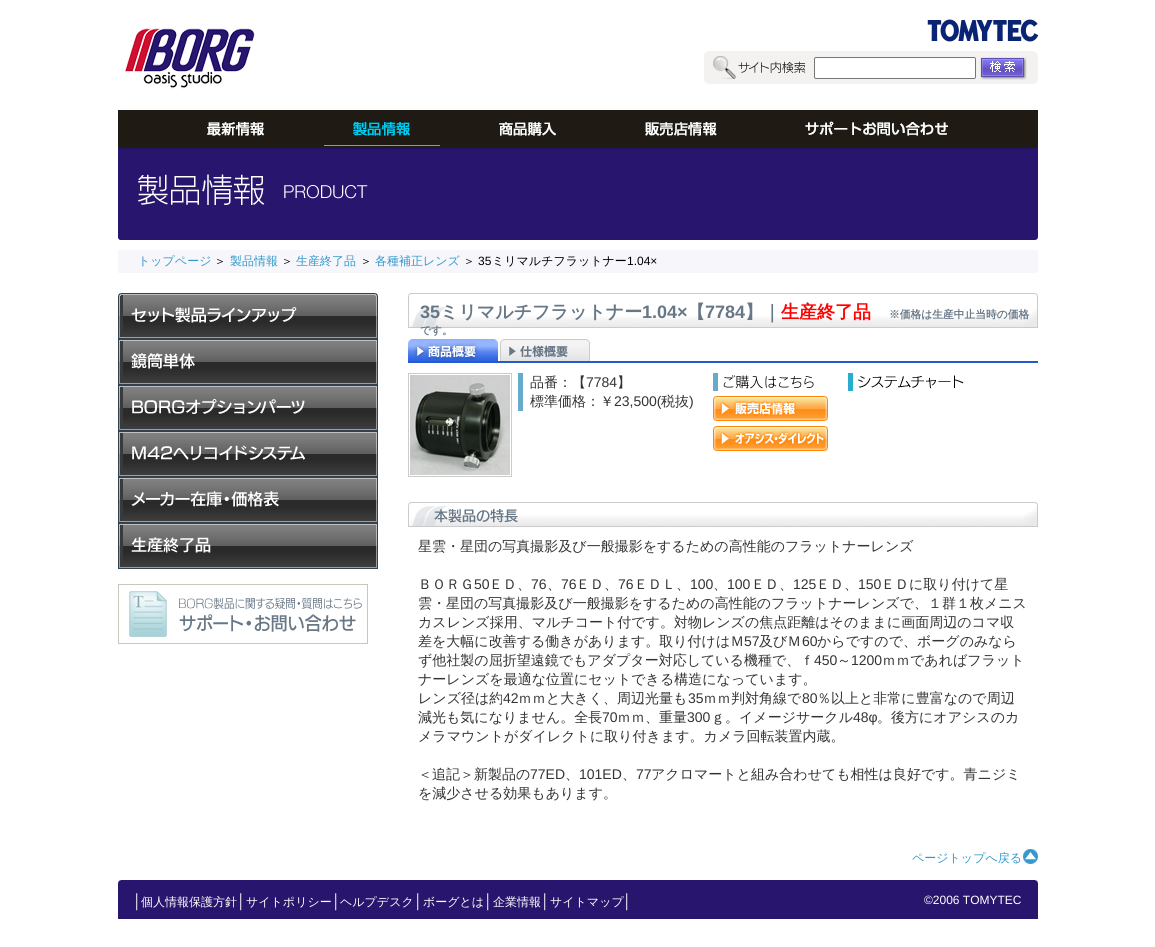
#include <cairo.h>
#include <math.h>
#include <stddef.h>

typedef struct { double x, y; const char *s; } line_t;

static void ink(cairo_t *ctx, unsigned color) {
    cairo_set_source_rgb(ctx, (color >> 16) / 255.0, (color >> 8 & 255) / 255.0, (color & 255) / 255.0);
}

static void round_path(cairo_t *ctx, double x, double y, double w, double h, double r) {
    cairo_new_sub_path(ctx);
    cairo_arc(ctx, x + w - r, y + h - r, r, 0, M_PI / 2);
    cairo_arc(ctx, x + r, y + h - r, r, M_PI / 2, M_PI);
    cairo_arc(ctx, x + r, y + r, r, M_PI, 1.5 * M_PI);
    cairo_arc(ctx, x + w - r, y + r, r, 1.5 * M_PI, 2 * M_PI);
    cairo_close_path(ctx);
}

static void paste(cairo_t *ctx, const char *path, double x, double y, double w, double h) {
    cairo_surface_t *image = cairo_image_surface_create_from_png(path);
    cairo_save(ctx);
    cairo_set_source_surface(ctx, image, x, y);
    cairo_rectangle(ctx, x, y, w, h);
    cairo_fill(ctx);
    cairo_restore(ctx);
    cairo_surface_destroy(image);
}

int main(void) {
    cairo_surface_t *surface = cairo_image_surface_create(CAIRO_FORMAT_RGB24, 1155, 947);
    cairo_t *ctx = cairo_create(surface);
    cairo_font_options_t *options = cairo_font_options_create();
    cairo_font_options_set_hint_metrics(options, CAIRO_HINT_METRICS_OFF);
    cairo_font_options_set_hint_style(options, CAIRO_HINT_STYLE_NONE);
    cairo_set_font_options(ctx, options);
    cairo_set_miter_limit(ctx, 4);
    ink(ctx, 0xFFFFFF);
    cairo_paint(ctx);
    paste(ctx, "media/1.png", 927, 19, 111, 23);
    paste(ctx, "media/2.png", 125, 28, 130, 61);
    ink(ctx, 0xF4F2F0);
    cairo_rectangle(ctx, 806, 51, 228, 33);
    cairo_fill(ctx);
    paste(ctx, "media/3.png", 704, 51, 102, 33);
    ink(ctx, 0xFFFFFF);
    round_path(ctx, 814.5, 57.5, 161, 21, 1.5);
    cairo_fill_preserve(ctx);
    ink(ctx, 0x767676);
    cairo_set_line_width(ctx, 1);
    cairo_stroke(ctx);
    paste(ctx, "media/4.png", 980, 57, 47, 23);
    paste(ctx, "media/5.png", 1034, 51, 4, 33);
    paste(ctx, "media/6.png", 118, 110, 920, 37);
    paste(ctx, "media/7.png", 324, 122, 116, 24);
    paste(ctx, "media/8.png", 118, 147, 920, 93);
    paste(ctx, "media/9.png", 118, 147, 920, 3);
    ink(ctx, 0xF7F6FA);
    cairo_rectangle(ctx, 118, 250, 920, 23);
    cairo_fill(ctx);
    cairo_select_font_face(ctx, "WenQuanYi Zen Hei Medium", CAIRO_FONT_SLANT_NORMAL, CAIRO_FONT_WEIGHT_NORMAL);
    cairo_set_font_size(ctx, 12);
    ink(ctx, 0x3399CC);
    cairo_move_to(ctx, 138, 265);
    cairo_show_text(ctx, "トップページ");
    ink(ctx, 0x000000);
    cairo_move_to(ctx, 214, 265);
    cairo_show_text(ctx, "＞");
    ink(ctx, 0x3399CC);
    cairo_move_to(ctx, 230, 265);
    cairo_show_text(ctx, "製品情報");
    ink(ctx, 0x000000);
    cairo_move_to(ctx, 281, 265);
    cairo_show_text(ctx, "＞");
    ink(ctx, 0x3399CC);
    cairo_move_to(ctx, 296, 265);
    cairo_show_text(ctx, "生産終了品");
    ink(ctx, 0x000000);
    cairo_move_to(ctx, 360, 265);
    cairo_show_text(ctx, "＞");
    ink(ctx, 0x3399CC);
    cairo_move_to(ctx, 375, 265);
    cairo_show_text(ctx, "各種補正レンズ");
    ink(ctx, 0x000000);
    cairo_move_to(ctx, 463, 265);
    cairo_show_text(ctx, "＞");
    cairo_select_font_face(ctx, "Liberation Sans", CAIRO_FONT_SLANT_NORMAL, CAIRO_FONT_WEIGHT_NORMAL);
    cairo_move_to(ctx, 478, 265);
    cairo_show_text(ctx, "35");
    cairo_select_font_face(ctx, "WenQuanYi Zen Hei Medium", CAIRO_FONT_SLANT_NORMAL, CAIRO_FONT_WEIGHT_NORMAL);
    cairo_move_to(ctx, 492, 265);
    cairo_show_text(ctx, "ミリマルチフラットナー");
    cairo_select_font_face(ctx, "Liberation Sans", CAIRO_FONT_SLANT_NORMAL, CAIRO_FONT_WEIGHT_NORMAL);
    cairo_move_to(ctx, 627, 265);
    cairo_show_text(ctx, "1.04×");
    paste(ctx, "media/10.png", 118, 293, 260, 46);
    paste(ctx, "media/11.png", 118, 339, 260, 46);
    paste(ctx, "media/12.png", 118, 385, 260, 46);
    paste(ctx, "media/13.png", 118, 431, 260, 46);
    paste(ctx, "media/14.png", 118, 477, 260, 46);
    paste(ctx, "media/15.png", 118, 523, 260, 46);
    paste(ctx, "media/16.png", 118, 584, 250, 60);
    paste(ctx, "media/17.png", 408, 293, 630, 35);
    cairo_select_font_face(ctx, "Liberation Sans", CAIRO_FONT_SLANT_NORMAL, CAIRO_FONT_WEIGHT_BOLD);
    cairo_set_font_size(ctx, 18);
    ink(ctx, 0x677786);
    cairo_move_to(ctx, 420, 318);
    cairo_show_text(ctx, "35");
    cairo_select_font_face(ctx, "WenQuanYi Zen Hei", CAIRO_FONT_SLANT_NORMAL, CAIRO_FONT_WEIGHT_BOLD);
    cairo_move_to(ctx, 440, 318);
    cairo_show_text(ctx, "ミリマルチフラットナー");
    cairo_select_font_face(ctx, "Liberation Sans", CAIRO_FONT_SLANT_NORMAL, CAIRO_FONT_WEIGHT_BOLD);
    cairo_move_to(ctx, 642, 318);
    cairo_show_text(ctx, "1.04×");
    cairo_select_font_face(ctx, "WenQuanYi Zen Hei", CAIRO_FONT_SLANT_NORMAL, CAIRO_FONT_WEIGHT_BOLD);
    cairo_move_to(ctx, 687, 318);
    cairo_show_text(ctx, "【");
    cairo_select_font_face(ctx, "Liberation Sans", CAIRO_FONT_SLANT_NORMAL, CAIRO_FONT_WEIGHT_BOLD);
    cairo_move_to(ctx, 705, 318);
    cairo_show_text(ctx, "7784");
    cairo_select_font_face(ctx, "WenQuanYi Zen Hei", CAIRO_FONT_SLANT_NORMAL, CAIRO_FONT_WEIGHT_BOLD);
    cairo_move_to(ctx, 745, 318);
    cairo_show_text(ctx, "】｜");
    ink(ctx, 0xFF0000);
    cairo_move_to(ctx, 781, 318);
    cairo_show_text(ctx, "生産終了品");
    cairo_set_font_size(ctx, 10.75);
    ink(ctx, 0x677786);
    cairo_move_to(ctx, 889, 318);
    cairo_show_text(ctx, "※価格は生産中止当時の価格");
    cairo_move_to(ctx, 420, 334);
    cairo_show_text(ctx, "です。");
    ink(ctx, 0x265AD0);
    cairo_rectangle(ctx, 408, 361, 630, 2);
    cairo_fill(ctx);
    paste(ctx, "media/18.png", 408, 339, 90, 22);
    paste(ctx, "media/19.png", 500, 339, 90, 22);
    cairo_rectangle(ctx, 408.5, 373.5, 103, 103);
    ink(ctx, 0xCCCCCC);
    cairo_stroke(ctx);
    paste(ctx, "media/20.png", 410, 375, 100, 100);
    ink(ctx, 0x66AACC);
    cairo_rectangle(ctx, 518, 373, 5, 38);
    cairo_fill(ctx);
    cairo_select_font_face(ctx, "WenQuanYi Zen Hei Medium", CAIRO_FONT_SLANT_NORMAL, CAIRO_FONT_WEIGHT_NORMAL);
    cairo_set_font_size(ctx, 14);
    ink(ctx, 0x333333);
    cairo_move_to(ctx, 530, 387);
    cairo_show_text(ctx, "品番：【");
    cairo_select_font_face(ctx, "Liberation Sans", CAIRO_FONT_SLANT_NORMAL, CAIRO_FONT_WEIGHT_NORMAL);
    cairo_move_to(ctx, 586, 387);
    cairo_show_text(ctx, "7784");
    cairo_select_font_face(ctx, "WenQuanYi Zen Hei Medium", CAIRO_FONT_SLANT_NORMAL, CAIRO_FONT_WEIGHT_NORMAL);
    cairo_move_to(ctx, 617, 387);
    cairo_show_text(ctx, "】");
    cairo_move_to(ctx, 530, 406);
    cairo_show_text(ctx, "標準価格：￥");
    cairo_select_font_face(ctx, "Liberation Sans", CAIRO_FONT_SLANT_NORMAL, CAIRO_FONT_WEIGHT_NORMAL);
    cairo_move_to(ctx, 614, 406);
    cairo_show_text(ctx, "23,500(");
    cairo_select_font_face(ctx, "WenQuanYi Zen Hei Medium", CAIRO_FONT_SLANT_NORMAL, CAIRO_FONT_WEIGHT_NORMAL);
    cairo_move_to(ctx, 661, 406);
    cairo_show_text(ctx, "税抜");
    cairo_select_font_face(ctx, "Liberation Sans", CAIRO_FONT_SLANT_NORMAL, CAIRO_FONT_WEIGHT_NORMAL);
    cairo_move_to(ctx, 689, 406);
    cairo_show_text(ctx, ")");
    paste(ctx, "media/21.png", 713, 373, 101, 18);
    paste(ctx, "media/22.png", 713, 396, 115, 25);
    paste(ctx, "media/23.png", 713, 426, 115, 25);
    paste(ctx, "media/24.png", 848, 373, 116, 18);
    paste(ctx, "media/25.png", 408, 502, 630, 25);
    cairo_select_font_face(ctx, "WenQuanYi Zen Hei Medium", CAIRO_FONT_SLANT_NORMAL, CAIRO_FONT_WEIGHT_NORMAL);
    cairo_move_to(ctx, 418, 551);
    cairo_show_text(ctx, "星雲・星団の写真撮影及び一般撮影をするための高性能のフラットナーレンズ");
    cairo_move_to(ctx, 418, 589);
    cairo_show_text(ctx, "ＢＯＲＧ");
    cairo_select_font_face(ctx, "Liberation Sans", CAIRO_FONT_SLANT_NORMAL, CAIRO_FONT_WEIGHT_NORMAL);
    cairo_move_to(ctx, 474, 589);
    cairo_show_text(ctx, "50");
    cairo_select_font_face(ctx, "WenQuanYi Zen Hei Medium", CAIRO_FONT_SLANT_NORMAL, CAIRO_FONT_WEIGHT_NORMAL);
    cairo_move_to(ctx, 489, 589);
    cairo_show_text(ctx, "ＥＤ、");
    cairo_select_font_face(ctx, "Liberation Sans", CAIRO_FONT_SLANT_NORMAL, CAIRO_FONT_WEIGHT_NORMAL);
    cairo_move_to(ctx, 531, 589);
    cairo_show_text(ctx, "76");
    cairo_select_font_face(ctx, "WenQuanYi Zen Hei Medium", CAIRO_FONT_SLANT_NORMAL, CAIRO_FONT_WEIGHT_NORMAL);
    cairo_move_to(ctx, 547, 589);
    cairo_show_text(ctx, "、");
    cairo_select_font_face(ctx, "Liberation Sans", CAIRO_FONT_SLANT_NORMAL, CAIRO_FONT_WEIGHT_NORMAL);
    cairo_move_to(ctx, 561, 589);
    cairo_show_text(ctx, "76");
    cairo_select_font_face(ctx, "WenQuanYi Zen Hei Medium", CAIRO_FONT_SLANT_NORMAL, CAIRO_FONT_WEIGHT_NORMAL);
    cairo_move_to(ctx, 576, 589);
    cairo_show_text(ctx, "ＥＤ、");
    cairo_select_font_face(ctx, "Liberation Sans", CAIRO_FONT_SLANT_NORMAL, CAIRO_FONT_WEIGHT_NORMAL);
    cairo_move_to(ctx, 618, 589);
    cairo_show_text(ctx, "76");
    cairo_select_font_face(ctx, "WenQuanYi Zen Hei Medium", CAIRO_FONT_SLANT_NORMAL, CAIRO_FONT_WEIGHT_NORMAL);
    cairo_move_to(ctx, 634, 589);
    cairo_show_text(ctx, "ＥＤＬ、");
    cairo_select_font_face(ctx, "Liberation Sans", CAIRO_FONT_SLANT_NORMAL, CAIRO_FONT_WEIGHT_NORMAL);
    cairo_move_to(ctx, 690, 589);
    cairo_show_text(ctx, "100");
    cairo_select_font_face(ctx, "WenQuanYi Zen Hei Medium", CAIRO_FONT_SLANT_NORMAL, CAIRO_FONT_WEIGHT_NORMAL);
    cairo_move_to(ctx, 713, 589);
    cairo_show_text(ctx, "、");
    cairo_select_font_face(ctx, "Liberation Sans", CAIRO_FONT_SLANT_NORMAL, CAIRO_FONT_WEIGHT_NORMAL);
    cairo_move_to(ctx, 727, 589);
    cairo_show_text(ctx, "100");
    cairo_select_font_face(ctx, "WenQuanYi Zen Hei Medium", CAIRO_FONT_SLANT_NORMAL, CAIRO_FONT_WEIGHT_NORMAL);
    cairo_move_to(ctx, 751, 589);
    cairo_show_text(ctx, "ＥＤ、");
    cairo_select_font_face(ctx, "Liberation Sans", CAIRO_FONT_SLANT_NORMAL, CAIRO_FONT_WEIGHT_NORMAL);
    cairo_move_to(ctx, 793, 589);
    cairo_show_text(ctx, "125");
    cairo_select_font_face(ctx, "WenQuanYi Zen Hei Medium", CAIRO_FONT_SLANT_NORMAL, CAIRO_FONT_WEIGHT_NORMAL);
    cairo_move_to(ctx, 816, 589);
    cairo_show_text(ctx, "ＥＤ、");
    cairo_select_font_face(ctx, "Liberation Sans", CAIRO_FONT_SLANT_NORMAL, CAIRO_FONT_WEIGHT_NORMAL);
    cairo_move_to(ctx, 858, 589);
    cairo_show_text(ctx, "150");
    cairo_select_font_face(ctx, "WenQuanYi Zen Hei Medium", CAIRO_FONT_SLANT_NORMAL, CAIRO_FONT_WEIGHT_NORMAL);
    {
        static const line_t items[] = {
            {881, 589, "ＥＤに取り付けて星"},
            {418, 608, "雲・星団の写真撮影及び一般撮影をするための高性能のフラットナーレンズで、１群１枚メニス"},
            {418, 627, "カスレンズ採用、マルチコート付です。対物レンズの焦点距離はそのままに画面周辺のコマ収"},
            {418, 646, "差を大幅に改善する働きがあります。取り付けはＭ"},
        };
        for (size_t i = 0; i < sizeof items / sizeof *items; i++) {
            cairo_move_to(ctx, items[i].x, items[i].y);
            cairo_show_text(ctx, items[i].s);
        }
    }
    cairo_select_font_face(ctx, "Liberation Sans", CAIRO_FONT_SLANT_NORMAL, CAIRO_FONT_WEIGHT_NORMAL);
    cairo_move_to(ctx, 744, 646);
    cairo_show_text(ctx, "57");
    cairo_select_font_face(ctx, "WenQuanYi Zen Hei Medium", CAIRO_FONT_SLANT_NORMAL, CAIRO_FONT_WEIGHT_NORMAL);
    cairo_move_to(ctx, 759, 646);
    cairo_show_text(ctx, "及びＭ");
    cairo_select_font_face(ctx, "Liberation Sans", CAIRO_FONT_SLANT_NORMAL, CAIRO_FONT_WEIGHT_NORMAL);
    cairo_move_to(ctx, 802, 646);
    cairo_show_text(ctx, "60");
    cairo_select_font_face(ctx, "WenQuanYi Zen Hei Medium", CAIRO_FONT_SLANT_NORMAL, CAIRO_FONT_WEIGHT_NORMAL);
    cairo_move_to(ctx, 817, 646);
    cairo_show_text(ctx, "からですので、ボーグのみなら");
    cairo_move_to(ctx, 418, 665);
    cairo_show_text(ctx, "ず他社製の屈折望遠鏡でもアダプター対応している機種で、ｆ");
    cairo_select_font_face(ctx, "Liberation Sans", CAIRO_FONT_SLANT_NORMAL, CAIRO_FONT_WEIGHT_NORMAL);
    cairo_move_to(ctx, 814, 665);
    cairo_show_text(ctx, "450");
    cairo_select_font_face(ctx, "WenQuanYi Zen Hei Medium", CAIRO_FONT_SLANT_NORMAL, CAIRO_FONT_WEIGHT_NORMAL);
    cairo_move_to(ctx, 837, 665);
    cairo_show_text(ctx, "～");
    cairo_select_font_face(ctx, "Liberation Sans", CAIRO_FONT_SLANT_NORMAL, CAIRO_FONT_WEIGHT_NORMAL);
    cairo_move_to(ctx, 851, 665);
    cairo_show_text(ctx, "1200");
    cairo_select_font_face(ctx, "WenQuanYi Zen Hei Medium", CAIRO_FONT_SLANT_NORMAL, CAIRO_FONT_WEIGHT_NORMAL);
    {
        static const line_t items[] = {
            {882, 665, "ｍｍであればフラット"},
            {418, 684, "ナーレンズを最適な位置にセットできる構造になっています。"},
            {418, 703, "レンズ径は約"},
        };
        for (size_t i = 0; i < sizeof items / sizeof *items; i++) {
            cairo_move_to(ctx, items[i].x, items[i].y);
            cairo_show_text(ctx, items[i].s);
        }
    }
    cairo_select_font_face(ctx, "Liberation Sans", CAIRO_FONT_SLANT_NORMAL, CAIRO_FONT_WEIGHT_NORMAL);
    cairo_move_to(ctx, 503, 703);
    cairo_show_text(ctx, "42");
    cairo_select_font_face(ctx, "WenQuanYi Zen Hei Medium", CAIRO_FONT_SLANT_NORMAL, CAIRO_FONT_WEIGHT_NORMAL);
    cairo_move_to(ctx, 518, 703);
    cairo_show_text(ctx, "ｍｍと大きく、周辺光量も");
    cairo_select_font_face(ctx, "Liberation Sans", CAIRO_FONT_SLANT_NORMAL, CAIRO_FONT_WEIGHT_NORMAL);
    cairo_move_to(ctx, 688, 703);
    cairo_show_text(ctx, "35");
    cairo_select_font_face(ctx, "WenQuanYi Zen Hei Medium", CAIRO_FONT_SLANT_NORMAL, CAIRO_FONT_WEIGHT_NORMAL);
    cairo_move_to(ctx, 703, 703);
    cairo_show_text(ctx, "ｍｍ判対角線で");
    cairo_select_font_face(ctx, "Liberation Sans", CAIRO_FONT_SLANT_NORMAL, CAIRO_FONT_WEIGHT_NORMAL);
    cairo_move_to(ctx, 802, 703);
    cairo_show_text(ctx, "80");
    cairo_select_font_face(ctx, "WenQuanYi Zen Hei Medium", CAIRO_FONT_SLANT_NORMAL, CAIRO_FONT_WEIGHT_NORMAL);
    cairo_move_to(ctx, 817, 703);
    cairo_show_text(ctx, "％以上と非常に豊富なので周辺");
    cairo_move_to(ctx, 418, 722);
    cairo_show_text(ctx, "減光も気になりません。全長");
    cairo_select_font_face(ctx, "Liberation Sans", CAIRO_FONT_SLANT_NORMAL, CAIRO_FONT_WEIGHT_NORMAL);
    cairo_move_to(ctx, 602, 722);
    cairo_show_text(ctx, "70");
    cairo_select_font_face(ctx, "WenQuanYi Zen Hei Medium", CAIRO_FONT_SLANT_NORMAL, CAIRO_FONT_WEIGHT_NORMAL);
    cairo_move_to(ctx, 617, 722);
    cairo_show_text(ctx, "ｍｍ、重量");
    cairo_select_font_face(ctx, "Liberation Sans", CAIRO_FONT_SLANT_NORMAL, CAIRO_FONT_WEIGHT_NORMAL);
    cairo_move_to(ctx, 687, 722);
    cairo_show_text(ctx, "300");
    cairo_select_font_face(ctx, "WenQuanYi Zen Hei Medium", CAIRO_FONT_SLANT_NORMAL, CAIRO_FONT_WEIGHT_NORMAL);
    cairo_move_to(ctx, 711, 722);
    cairo_show_text(ctx, "ｇ。イメージサークル");
    cairo_select_font_face(ctx, "Liberation Sans", CAIRO_FONT_SLANT_NORMAL, CAIRO_FONT_WEIGHT_NORMAL);
    cairo_move_to(ctx, 853, 722);
    cairo_show_text(ctx, "48φ");
    cairo_select_font_face(ctx, "WenQuanYi Zen Hei Medium", CAIRO_FONT_SLANT_NORMAL, CAIRO_FONT_WEIGHT_NORMAL);
    {
        static const line_t items[] = {
            {877, 722, "。後方にオアシスのカ"},
            {418, 741, "メラマウントがダイレクトに取り付きます。カメラ回転装置内蔵。"},
            {418, 779, "＜追記＞新製品の"},
        };
        for (size_t i = 0; i < sizeof items / sizeof *items; i++) {
            cairo_move_to(ctx, items[i].x, items[i].y);
            cairo_show_text(ctx, items[i].s);
        }
    }
    cairo_select_font_face(ctx, "Liberation Sans", CAIRO_FONT_SLANT_NORMAL, CAIRO_FONT_WEIGHT_NORMAL);
    cairo_move_to(ctx, 530, 779);
    cairo_show_text(ctx, "77ED");
    cairo_select_font_face(ctx, "WenQuanYi Zen Hei Medium", CAIRO_FONT_SLANT_NORMAL, CAIRO_FONT_WEIGHT_NORMAL);
    cairo_move_to(ctx, 565, 779);
    cairo_show_text(ctx, "、");
    cairo_select_font_face(ctx, "Liberation Sans", CAIRO_FONT_SLANT_NORMAL, CAIRO_FONT_WEIGHT_NORMAL);
    cairo_move_to(ctx, 579, 779);
    cairo_show_text(ctx, "101ED");
    cairo_select_font_face(ctx, "WenQuanYi Zen Hei Medium", CAIRO_FONT_SLANT_NORMAL, CAIRO_FONT_WEIGHT_NORMAL);
    cairo_move_to(ctx, 622, 779);
    cairo_show_text(ctx, "、");
    cairo_select_font_face(ctx, "Liberation Sans", CAIRO_FONT_SLANT_NORMAL, CAIRO_FONT_WEIGHT_NORMAL);
    cairo_move_to(ctx, 636, 779);
    cairo_show_text(ctx, "77");
    cairo_select_font_face(ctx, "WenQuanYi Zen Hei Medium", CAIRO_FONT_SLANT_NORMAL, CAIRO_FONT_WEIGHT_NORMAL);
    cairo_move_to(ctx, 651, 779);
    cairo_show_text(ctx, "アクロマートと組み合わせても相性は良好です。青ニジミ");
    cairo_move_to(ctx, 418, 798);
    cairo_show_text(ctx, "を減少させる効果もあります。");
    cairo_set_font_size(ctx, 12);
    ink(ctx, 0x3399CC);
    cairo_move_to(ctx, 912, 862);
    cairo_show_text(ctx, "ページトップへ戻る");
    paste(ctx, "media/26.png", 1023, 849, 15, 15);
    ink(ctx, 0x28156E);
    cairo_rectangle(ctx, 118, 883, 920, 36);
    cairo_fill(ctx);
    paste(ctx, "media/27.png", 118, 880, 920, 3);
    cairo_select_font_face(ctx, "Liberation Sans", CAIRO_FONT_SLANT_NORMAL, CAIRO_FONT_WEIGHT_NORMAL);
    cairo_set_font_size(ctx, 14);
    ink(ctx, 0xFFFFFF);
    cairo_move_to(ctx, 133, 906);
    cairo_show_text(ctx, "│");
    cairo_select_font_face(ctx, "WenQuanYi Zen Hei Medium", CAIRO_FONT_SLANT_NORMAL, CAIRO_FONT_WEIGHT_NORMAL);
    cairo_set_font_size(ctx, 12);
    cairo_move_to(ctx, 141, 906);
    cairo_show_text(ctx, "個人情報保護方針");
    cairo_select_font_face(ctx, "Liberation Sans", CAIRO_FONT_SLANT_NORMAL, CAIRO_FONT_WEIGHT_NORMAL);
    cairo_set_font_size(ctx, 14);
    cairo_move_to(ctx, 237, 906);
    cairo_show_text(ctx, "│");
    cairo_select_font_face(ctx, "WenQuanYi Zen Hei Medium", CAIRO_FONT_SLANT_NORMAL, CAIRO_FONT_WEIGHT_NORMAL);
    cairo_set_font_size(ctx, 12);
    cairo_move_to(ctx, 246, 906);
    cairo_show_text(ctx, "サイトポリシー");
    cairo_select_font_face(ctx, "Liberation Sans", CAIRO_FONT_SLANT_NORMAL, CAIRO_FONT_WEIGHT_NORMAL);
    cairo_set_font_size(ctx, 14);
    cairo_move_to(ctx, 332, 906);
    cairo_show_text(ctx, "│");
    cairo_select_font_face(ctx, "WenQuanYi Zen Hei Medium", CAIRO_FONT_SLANT_NORMAL, CAIRO_FONT_WEIGHT_NORMAL);
    cairo_set_font_size(ctx, 12);
    cairo_move_to(ctx, 340, 906);
    cairo_show_text(ctx, "ヘルプデスク");
    cairo_select_font_face(ctx, "Liberation Sans", CAIRO_FONT_SLANT_NORMAL, CAIRO_FONT_WEIGHT_NORMAL);
    cairo_set_font_size(ctx, 14);
    cairo_move_to(ctx, 414, 906);
    cairo_show_text(ctx, "│");
    cairo_select_font_face(ctx, "WenQuanYi Zen Hei Medium", CAIRO_FONT_SLANT_NORMAL, CAIRO_FONT_WEIGHT_NORMAL);
    cairo_set_font_size(ctx, 12);
    cairo_move_to(ctx, 423, 906);
    cairo_show_text(ctx, "ボーグとは");
    cairo_select_font_face(ctx, "Liberation Sans", CAIRO_FONT_SLANT_NORMAL, CAIRO_FONT_WEIGHT_NORMAL);
    cairo_set_font_size(ctx, 14);
    cairo_move_to(ctx, 484, 906);
    cairo_show_text(ctx, "│");
    cairo_select_font_face(ctx, "WenQuanYi Zen Hei Medium", CAIRO_FONT_SLANT_NORMAL, CAIRO_FONT_WEIGHT_NORMAL);
    cairo_set_font_size(ctx, 12);
    cairo_move_to(ctx, 493, 906);
    cairo_show_text(ctx, "企業情報");
    cairo_select_font_face(ctx, "Liberation Sans", CAIRO_FONT_SLANT_NORMAL, CAIRO_FONT_WEIGHT_NORMAL);
    cairo_set_font_size(ctx, 14);
    cairo_move_to(ctx, 541, 906);
    cairo_show_text(ctx, "│");
    cairo_select_font_face(ctx, "WenQuanYi Zen Hei Medium", CAIRO_FONT_SLANT_NORMAL, CAIRO_FONT_WEIGHT_NORMAL);
    cairo_set_font_size(ctx, 12);
    cairo_move_to(ctx, 550, 906);
    cairo_show_text(ctx, "サイトマップ");
    cairo_select_font_face(ctx, "Liberation Sans", CAIRO_FONT_SLANT_NORMAL, CAIRO_FONT_WEIGHT_NORMAL);
    cairo_set_font_size(ctx, 14);
    cairo_move_to(ctx, 623, 906);
    cairo_show_text(ctx, "│");
    cairo_set_font_size(ctx, 12);
    cairo_move_to(ctx, 924, 904);
    cairo_show_text(ctx, "©2006 TOMYTEC");
    cairo_surface_write_to_png(surface, "image.png");
    cairo_font_options_destroy(options);
    cairo_destroy(ctx);
    cairo_surface_destroy(surface);
    return 0;
}
